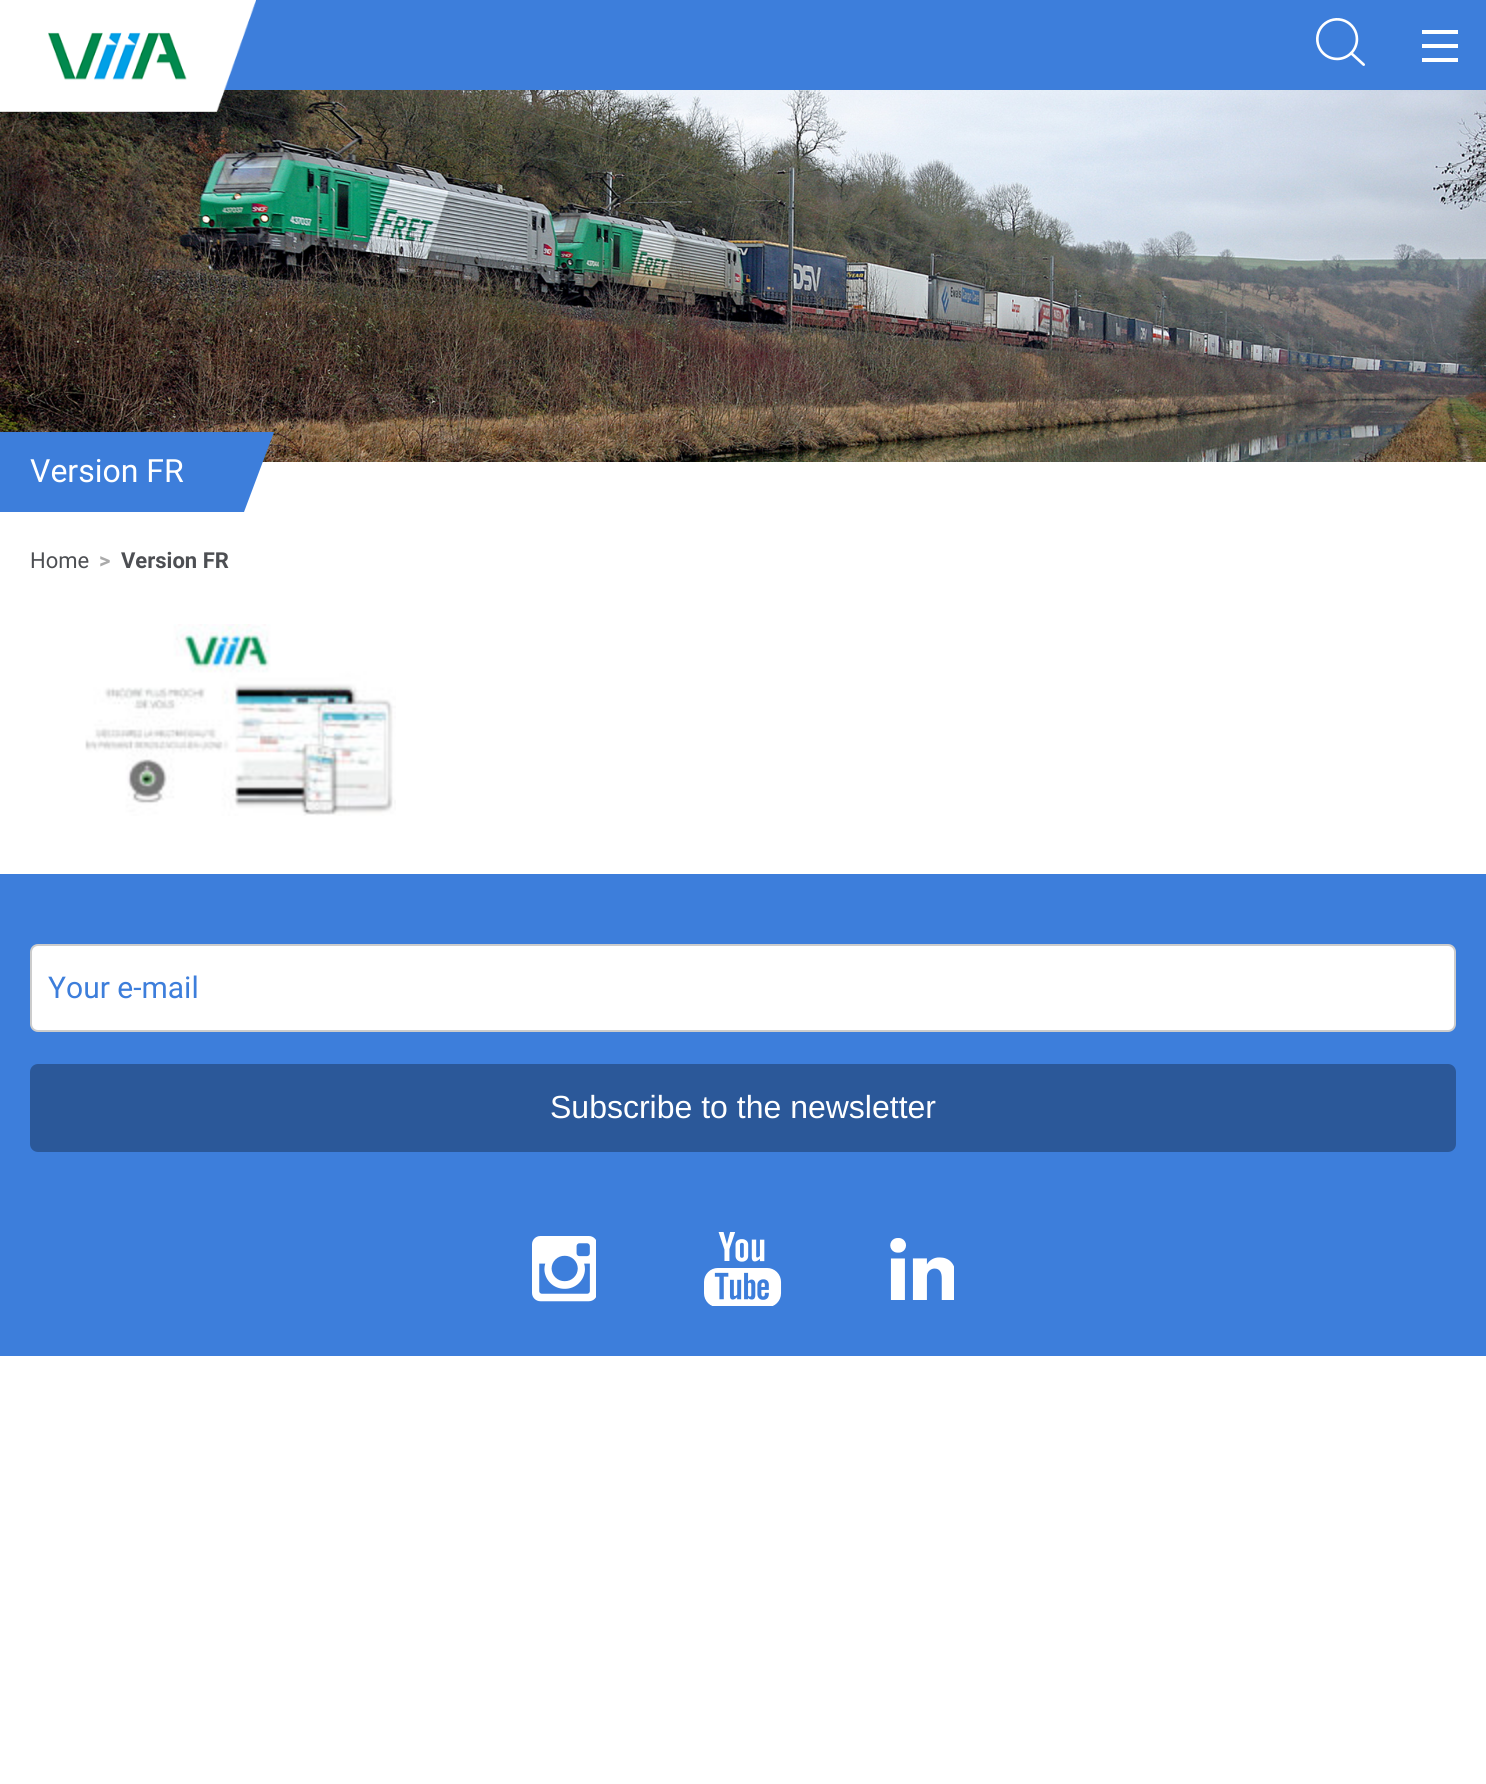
#include <cairo.h>
#include <math.h>
#include <stddef.h>

typedef struct { double x, y, w, h; unsigned color; } box_t;

static void ink(cairo_t *ctx, unsigned color) {
    cairo_set_source_rgb(ctx, (color >> 16) / 255.0, (color >> 8 & 255) / 255.0, (color & 255) / 255.0);
}

static void round_path(cairo_t *ctx, double x, double y, double w, double h, double r) {
    cairo_new_sub_path(ctx);
    cairo_arc(ctx, x + w - r, y + h - r, r, 0, M_PI / 2);
    cairo_arc(ctx, x + r, y + h - r, r, M_PI / 2, M_PI);
    cairo_arc(ctx, x + r, y + r, r, M_PI, 1.5 * M_PI);
    cairo_arc(ctx, x + w - r, y + r, r, 1.5 * M_PI, 2 * M_PI);
    cairo_close_path(ctx);
}

static void paste(cairo_t *ctx, const char *path, double x, double y, double w, double h) {
    cairo_surface_t *image = cairo_image_surface_create_from_png(path);
    cairo_save(ctx);
    cairo_set_source_surface(ctx, image, x, y);
    cairo_rectangle(ctx, x, y, w, h);
    cairo_fill(ctx);
    cairo_restore(ctx);
    cairo_surface_destroy(image);
}

int main(void) {
    cairo_surface_t *surface = cairo_image_surface_create(CAIRO_FORMAT_RGB24, 1486, 1784);
    cairo_t *ctx = cairo_create(surface);
    cairo_font_options_t *options = cairo_font_options_create();
    cairo_font_options_set_hint_metrics(options, CAIRO_HINT_METRICS_OFF);
    cairo_font_options_set_hint_style(options, CAIRO_HINT_STYLE_NONE);
    cairo_set_font_options(ctx, options);
    cairo_set_miter_limit(ctx, 4);
    ink(ctx, 0xFFFFFF);
    cairo_paint(ctx);
    ink(ctx, 0x3D7EDB);
    cairo_rectangle(ctx, 223, 0, 1263, 90);
    cairo_fill(ctx);
    paste(ctx, "media/3.png", 0, 90, 1486, 372);
    paste(ctx, "media/1.png", 0, 0, 256, 112);
    paste(ctx, "media/2.png", 1316, 18, 49, 48);
    {
        static const box_t items[] = {
            {1422, 58, 36, 4, 0xFFFFFF},
            {1422, 44, 36, 4, 0xFFFFFF},
            {1422, 30, 36, 4, 0xFFFFFF},
            {0, 432, 244, 80, 0x3D7EDB},
        };
        for (size_t i = 0; i < sizeof items / sizeof *items; i++) {
            ink(ctx, items[i].color);
            cairo_rectangle(ctx, items[i].x, items[i].y, items[i].w, items[i].h);
            cairo_fill(ctx);
        }
    }
    cairo_select_font_face(ctx, "Roboto", CAIRO_FONT_SLANT_NORMAL, CAIRO_FONT_WEIGHT_NORMAL);
    cairo_set_font_size(ctx, 32);
    ink(ctx, 0xFFFFFF);
    cairo_move_to(ctx, 30, 482);
    cairo_show_text(ctx, "Version FR");
    ink(ctx, 0x3D7EDB);
    cairo_new_path(ctx);
    cairo_move_to(ctx, 244, 432);
    cairo_line_to(ctx, 274, 432);
    cairo_line_to(ctx, 244, 512);
    cairo_close_path(ctx);
    cairo_fill(ctx);
    cairo_set_font_size(ctx, 22);
    ink(ctx, 0x4D4F53);
    cairo_move_to(ctx, 30, 568);
    cairo_show_text(ctx, "Home");
    cairo_select_font_face(ctx, "Roboto", CAIRO_FONT_SLANT_NORMAL, CAIRO_FONT_WEIGHT_BOLD);
    ink(ctx, 0xAAAAAA);
    cairo_move_to(ctx, 99, 568);
    cairo_show_text(ctx, ">");
    ink(ctx, 0x4D4F53);
    cairo_move_to(ctx, 121, 568);
    cairo_show_text(ctx, "Version FR");
    paste(ctx, "media/4.png", 85, 624, 311, 192);
    ink(ctx, 0x3D7EDB);
    cairo_rectangle(ctx, 0, 874, 1486, 482);
    cairo_fill(ctx);
    ink(ctx, 0xFFFFFF);
    round_path(ctx, 31, 945, 1424, 86, 7);
    cairo_fill_preserve(ctx);
    ink(ctx, 0xCCCCCC);
    cairo_stroke(ctx);
    cairo_select_font_face(ctx, "Roboto", CAIRO_FONT_SLANT_NORMAL, CAIRO_FONT_WEIGHT_NORMAL);
    cairo_set_font_size(ctx, 30);
    ink(ctx, 0x3D7EDB);
    cairo_move_to(ctx, 48, 998);
    cairo_show_text(ctx, "Your e-mail");
    ink(ctx, 0x2B5899);
    round_path(ctx, 30, 1064, 1426, 88, 8);
    cairo_fill(ctx);
    cairo_select_font_face(ctx, "Liberation Sans", CAIRO_FONT_SLANT_NORMAL, CAIRO_FONT_WEIGHT_NORMAL);
    cairo_set_font_size(ctx, 32);
    ink(ctx, 0xFFFFFF);
    cairo_move_to(ctx, 550, 1118);
    cairo_show_text(ctx, "Subscribe to the newsletter");
    paste(ctx, "media/5.png", 532, 1236, 64, 66);
    paste(ctx, "media/6.png", 704, 1232, 78, 74);
    paste(ctx, "media/7.png", 890, 1238, 64, 62);
    cairo_surface_write_to_png(surface, "image.png");
    cairo_font_options_destroy(options);
    cairo_destroy(ctx);
    cairo_surface_destroy(surface);
    return 0;
}
